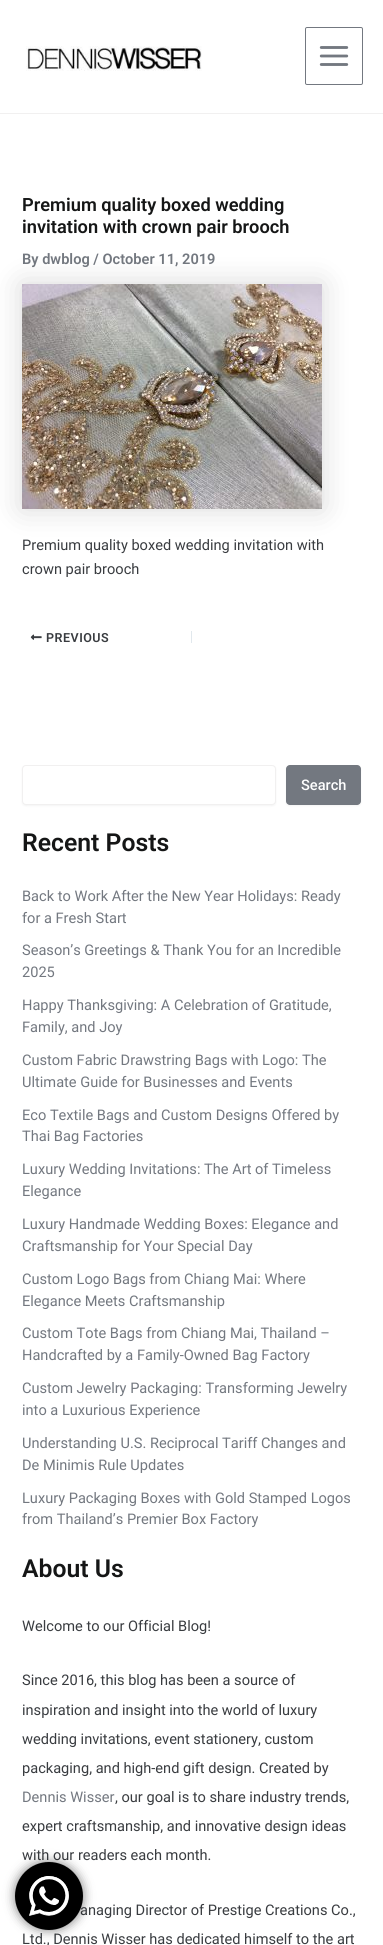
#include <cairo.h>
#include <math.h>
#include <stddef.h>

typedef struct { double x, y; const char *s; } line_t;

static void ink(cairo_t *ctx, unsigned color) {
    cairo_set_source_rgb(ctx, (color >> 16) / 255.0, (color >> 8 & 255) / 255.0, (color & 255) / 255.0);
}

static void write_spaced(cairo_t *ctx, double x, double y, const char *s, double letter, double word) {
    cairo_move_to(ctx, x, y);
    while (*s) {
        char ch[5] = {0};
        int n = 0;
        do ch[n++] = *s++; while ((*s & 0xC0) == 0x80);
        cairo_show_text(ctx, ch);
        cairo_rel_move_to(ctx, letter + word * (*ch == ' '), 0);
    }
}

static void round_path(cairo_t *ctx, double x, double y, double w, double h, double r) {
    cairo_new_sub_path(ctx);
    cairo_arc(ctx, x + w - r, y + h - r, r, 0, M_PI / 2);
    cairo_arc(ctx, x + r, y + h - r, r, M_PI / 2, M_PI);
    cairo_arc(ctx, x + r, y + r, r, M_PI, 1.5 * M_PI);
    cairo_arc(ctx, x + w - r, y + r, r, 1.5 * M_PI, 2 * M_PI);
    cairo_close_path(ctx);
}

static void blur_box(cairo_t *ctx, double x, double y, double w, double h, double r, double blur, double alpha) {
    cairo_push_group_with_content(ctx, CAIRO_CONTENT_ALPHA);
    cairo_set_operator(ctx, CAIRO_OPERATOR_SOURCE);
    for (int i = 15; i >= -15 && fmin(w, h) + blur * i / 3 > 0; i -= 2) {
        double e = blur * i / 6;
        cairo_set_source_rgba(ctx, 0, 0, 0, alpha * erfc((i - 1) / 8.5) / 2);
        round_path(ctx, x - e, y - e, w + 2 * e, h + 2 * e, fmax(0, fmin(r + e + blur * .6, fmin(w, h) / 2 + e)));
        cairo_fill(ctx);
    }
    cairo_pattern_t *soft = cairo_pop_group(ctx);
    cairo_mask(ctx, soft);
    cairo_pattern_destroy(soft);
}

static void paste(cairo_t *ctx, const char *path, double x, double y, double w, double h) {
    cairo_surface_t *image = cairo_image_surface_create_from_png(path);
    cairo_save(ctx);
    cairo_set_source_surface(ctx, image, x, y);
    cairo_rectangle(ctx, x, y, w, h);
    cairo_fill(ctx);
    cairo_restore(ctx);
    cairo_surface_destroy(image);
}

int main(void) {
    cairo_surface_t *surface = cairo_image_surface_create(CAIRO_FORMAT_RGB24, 383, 1945);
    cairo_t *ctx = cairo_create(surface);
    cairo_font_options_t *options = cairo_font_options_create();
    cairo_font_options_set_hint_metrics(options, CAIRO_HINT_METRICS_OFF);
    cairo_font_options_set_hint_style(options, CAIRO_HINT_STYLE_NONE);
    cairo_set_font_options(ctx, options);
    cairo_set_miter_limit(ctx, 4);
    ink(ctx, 0xFFFFFF);
    cairo_paint(ctx);
    ink(ctx, 0xF1F0F0);
    cairo_rectangle(ctx, 0, 113, 383, 1);
    cairo_fill(ctx);
    paste(ctx, "media/1.png", 26, 46, 176, 25);
    round_path(ctx, 305.5, 27.5, 57, 57, 1.5);
    ink(ctx, 0x737880);
    cairo_set_line_width(ctx, 1);
    cairo_stroke(ctx);
    paste(ctx, "media/2.png", 319, 46, 30, 20);
    cairo_select_font_face(ctx, "Roboto SemiBold", CAIRO_FONT_SLANT_NORMAL, CAIRO_FONT_WEIGHT_NORMAL);
    cairo_set_font_size(ctx, 18.25);
    ink(ctx, 0x151616);
    cairo_move_to(ctx, 22, 211);
    cairo_show_text(ctx, "Premium quality boxed wedding");
    cairo_move_to(ctx, 22, 233);
    cairo_show_text(ctx, "invitation with crown pair brooch");
    cairo_set_font_size(ctx, 14.6);
    ink(ctx, 0x737880);
    cairo_move_to(ctx, 22, 264);
    cairo_show_text(ctx, "By dwblog / October 11, 2019");
    ink(ctx, 0x000000);
    blur_box(ctx, 22, 284, 300, 225, 0, 15, 0.15);
    paste(ctx, "media/3.png", 22, 284, 300, 225);
    cairo_select_font_face(ctx, "Roboto", CAIRO_FONT_SLANT_NORMAL, CAIRO_FONT_WEIGHT_NORMAL);
    ink(ctx, 0x393C40);
    cairo_move_to(ctx, 22, 550);
    cairo_show_text(ctx, "Premium quality boxed wedding invitation with");
    cairo_move_to(ctx, 22, 574);
    cairo_show_text(ctx, "crown pair brooch");
    paste(ctx, "media/4.png", 30, 634, 12, 6);
    cairo_select_font_face(ctx, "Roboto SemiBold", CAIRO_FONT_SLANT_NORMAL, CAIRO_FONT_WEIGHT_NORMAL);
    cairo_set_font_size(ctx, 12.5);
    write_spaced(ctx, 46, 642, "PREVIOUS", 0.5, 0);
    ink(ctx, 0xE1E8ED);
    cairo_rectangle(ctx, 191, 631, 1, 12);
    cairo_fill(ctx);
    ink(ctx, 0x000000);
    blur_box(ctx, 22, 766, 254, 40, 4, 1, 0.05);
    ink(ctx, 0xFFFFFF);
    round_path(ctx, 22.5, 765.5, 253, 39, 3.5);
    cairo_fill_preserve(ctx);
    ink(ctx, 0xF1F0F0);
    cairo_stroke(ctx);
    ink(ctx, 0x000000);
    blur_box(ctx, 286, 766, 75, 40, 4, 1, 0.05);
    ink(ctx, 0x737880);
    round_path(ctx, 286, 765, 75, 40, 4);
    cairo_fill(ctx);
    cairo_select_font_face(ctx, "Roboto Medium", CAIRO_FONT_SLANT_NORMAL, CAIRO_FONT_WEIGHT_NORMAL);
    cairo_set_font_size(ctx, 14.6);
    ink(ctx, 0xFFFFFF);
    cairo_move_to(ctx, 301, 790);
    cairo_show_text(ctx, "Search");
    cairo_select_font_face(ctx, "Roboto SemiBold", CAIRO_FONT_SLANT_NORMAL, CAIRO_FONT_WEIGHT_NORMAL);
    cairo_set_font_size(ctx, 24.75);
    ink(ctx, 0x151616);
    cairo_move_to(ctx, 22, 851);
    cairo_show_text(ctx, "Recent Posts");
    cairo_select_font_face(ctx, "Roboto", CAIRO_FONT_SLANT_NORMAL, CAIRO_FONT_WEIGHT_NORMAL);
    cairo_set_font_size(ctx, 14.6);
    ink(ctx, 0x737880);
    {
        static const line_t items[] = {
            {22, 901, "Back to Work After the New Year Holidays: Ready"},
            {22, 923, "for a Fresh Start"},
            {22, 955, "Season’s Greetings & Thank You for an Incredible"},
            {22, 977, "2025"},
            {22, 1010, "Happy Thanksgiving: A Celebration of Gratitude,"},
            {22, 1032, "Family, and Joy"},
            {22, 1065, "Custom Fabric Drawstring Bags with Logo: The"},
            {22, 1087, "Ultimate Guide for Businesses and Events"},
            {22, 1120, "Eco Textile Bags and Custom Designs Offered by"},
            {22, 1141, "Thai Bag Factories"},
            {22, 1174, "Luxury Wedding Invitations: The Art of Timeless"},
            {22, 1196, "Elegance"},
            {22, 1229, "Luxury Handmade Wedding Boxes: Elegance and"},
            {22, 1251, "Craftsmanship for Your Special Day"},
            {22, 1284, "Custom Logo Bags from Chiang Mai: Where"},
            {22, 1306, "Elegance Meets Craftsmanship"},
            {22, 1338, "Custom Tote Bags from Chiang Mai, Thailand –"},
            {22, 1360, "Handcrafted by a Family-Owned Bag Factory"},
            {22, 1393, "Custom Jewelry Packaging: Transforming Jewelry"},
            {22, 1415, "into a Luxurious Experience"},
            {22, 1448, "Understanding U.S. Reciprocal Tariff Changes and"},
            {22, 1470, "De Minimis Rule Updates"},
            {22, 1503, "Luxury Packaging Boxes with Gold Stamped Logos"},
            {22, 1524, "from Thailand’s Premier Box Factory"},
        };
        for (size_t i = 0; i < sizeof items / sizeof *items; i++) {
            cairo_move_to(ctx, items[i].x, items[i].y);
            cairo_show_text(ctx, items[i].s);
        }
    }
    cairo_select_font_face(ctx, "Roboto SemiBold", CAIRO_FONT_SLANT_NORMAL, CAIRO_FONT_WEIGHT_NORMAL);
    cairo_set_font_size(ctx, 24.75);
    ink(ctx, 0x151616);
    cairo_move_to(ctx, 22, 1577);
    cairo_show_text(ctx, "About Us");
    cairo_select_font_face(ctx, "Roboto", CAIRO_FONT_SLANT_NORMAL, CAIRO_FONT_WEIGHT_NORMAL);
    cairo_set_font_size(ctx, 14.6);
    ink(ctx, 0x393C40);
    {
        static const line_t items[] = {
            {22, 1631, "Welcome to our Official Blog!"},
            {22, 1685, "Since 2016, this blog has been a source of"},
            {22, 1715, "inspiration and insight into the world of luxury"},
            {22, 1744, "wedding invitations, event stationery, custom"},
            {22, 1773, "packaging, and high-end gift design. Created by"},
        };
        for (size_t i = 0; i < sizeof items / sizeof *items; i++) {
            cairo_move_to(ctx, items[i].x, items[i].y);
            cairo_show_text(ctx, items[i].s);
        }
    }
    ink(ctx, 0x737880);
    cairo_move_to(ctx, 22, 1802);
    cairo_show_text(ctx, "Dennis Wisser");
    ink(ctx, 0x393C40);
    {
        static const line_t items[] = {
            {115, 1802, ", our goal is to share industry trends,"},
            {22, 1831, "expert craftsmanship, and innovative design ideas"},
            {22, 1860, "with our readers each month."},
            {80, 1915, "anaging Director of Prestige Creations Co.,"},
            {22, 1944, "Ltd., Dennis Wisser has dedicated himself to the art"},
        };
        for (size_t i = 0; i < sizeof items / sizeof *items; i++) {
            cairo_move_to(ctx, items[i].x, items[i].y);
            cairo_show_text(ctx, items[i].s);
        }
    }
    ink(ctx, 0x000000);
    blur_box(ctx, 15, 1862, 68, 68, 34, 5.5, 0.5);
    ink(ctx, 0x000000);
    cairo_arc(ctx, 49, 1896, 34, 0, 2 * M_PI);
    cairo_fill(ctx);
    paste(ctx, "media/5.png", 29, 1876, 40, 40);
    cairo_surface_write_to_png(surface, "image.png");
    cairo_font_options_destroy(options);
    cairo_destroy(ctx);
    cairo_surface_destroy(surface);
    return 0;
}
